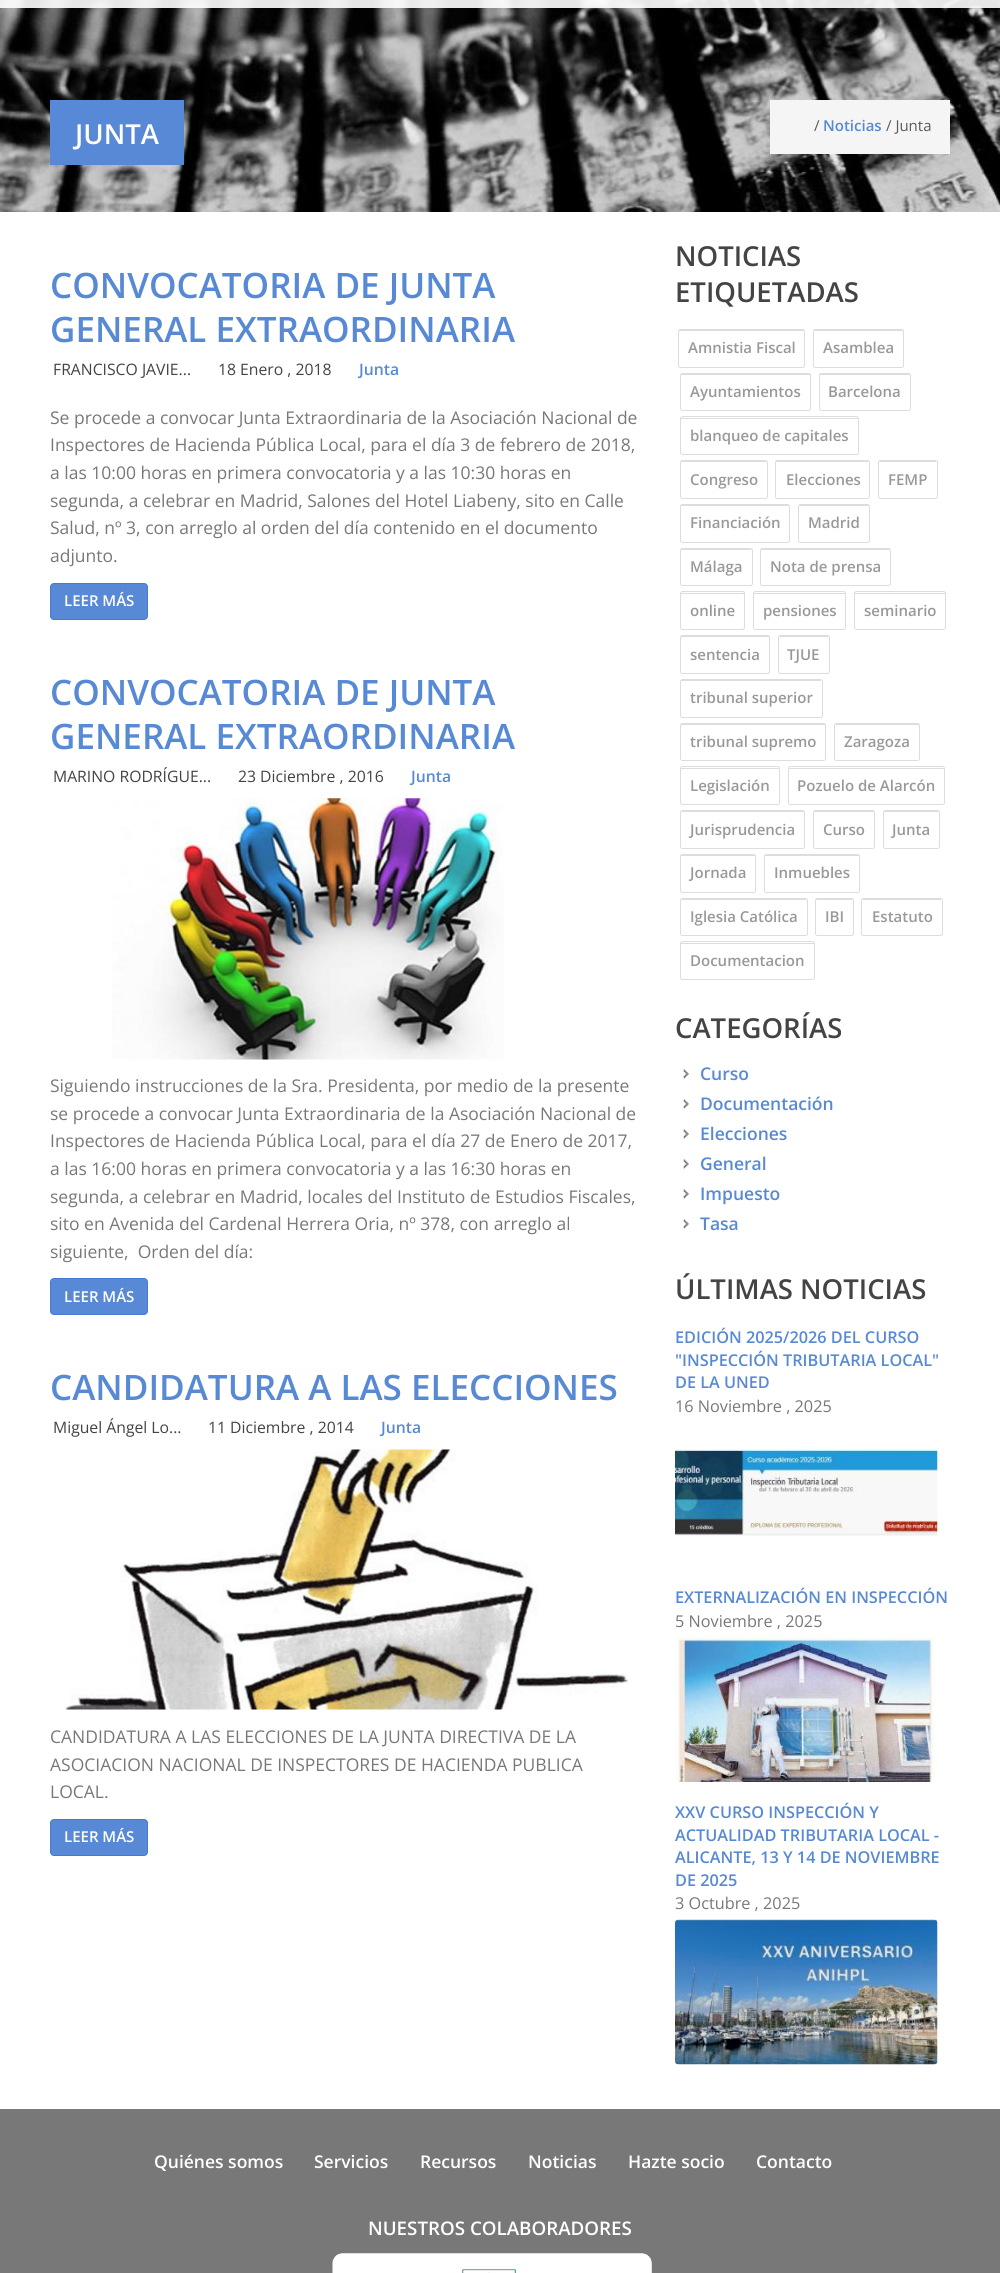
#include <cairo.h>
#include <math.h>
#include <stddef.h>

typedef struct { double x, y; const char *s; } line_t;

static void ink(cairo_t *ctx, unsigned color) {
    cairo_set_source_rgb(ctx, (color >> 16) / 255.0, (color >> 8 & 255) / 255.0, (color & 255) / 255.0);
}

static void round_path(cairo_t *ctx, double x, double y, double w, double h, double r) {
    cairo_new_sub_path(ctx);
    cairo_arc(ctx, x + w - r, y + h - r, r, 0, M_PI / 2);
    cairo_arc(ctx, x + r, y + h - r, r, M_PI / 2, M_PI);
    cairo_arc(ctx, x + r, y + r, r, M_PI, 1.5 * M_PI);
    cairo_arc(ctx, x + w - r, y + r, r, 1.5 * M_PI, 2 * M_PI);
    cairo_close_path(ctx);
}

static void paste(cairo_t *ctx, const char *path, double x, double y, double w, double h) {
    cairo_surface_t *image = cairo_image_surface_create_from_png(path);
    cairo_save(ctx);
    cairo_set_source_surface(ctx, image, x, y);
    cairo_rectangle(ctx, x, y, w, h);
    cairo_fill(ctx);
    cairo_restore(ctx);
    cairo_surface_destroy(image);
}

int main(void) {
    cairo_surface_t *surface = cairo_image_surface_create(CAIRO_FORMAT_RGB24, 1000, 2273);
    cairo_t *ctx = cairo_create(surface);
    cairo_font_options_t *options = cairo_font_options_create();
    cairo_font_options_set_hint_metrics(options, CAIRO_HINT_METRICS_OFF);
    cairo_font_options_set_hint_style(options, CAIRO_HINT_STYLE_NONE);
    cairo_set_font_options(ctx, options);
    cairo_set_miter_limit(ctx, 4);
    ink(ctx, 0xFFFFFF);
    cairo_paint(ctx);
    paste(ctx, "media/1.png", 0, 0, 1000, 212);
    cairo_set_source_rgba(ctx, 1, 1, 1, 0.9);
    cairo_rectangle(ctx, 0, 0, 1000, 8);
    cairo_fill(ctx);
    ink(ctx, 0x5889D6);
    cairo_rectangle(ctx, 50, 100, 134, 65);
    cairo_fill(ctx);
    cairo_select_font_face(ctx, "Open Sans SemiBold", CAIRO_FONT_SLANT_NORMAL, CAIRO_FONT_WEIGHT_NORMAL);
    cairo_set_font_size(ctx, 27.5);
    ink(ctx, 0xFFFFFF);
    cairo_move_to(ctx, 75, 144);
    cairo_show_text(ctx, "JUNTA");
    cairo_set_source_rgba(ctx, 1, 1, 1, 0.95);
    cairo_rectangle(ctx, 770, 100, 180, 54);
    cairo_fill(ctx);
    ink(ctx, 0xF5F5F5);
    round_path(ctx, 770, 100, 180, 54, 2.5);
    cairo_fill(ctx);
    cairo_select_font_face(ctx, "Open Sans", CAIRO_FONT_SLANT_NORMAL, CAIRO_FONT_WEIGHT_NORMAL);
    cairo_set_font_size(ctx, 15);
    ink(ctx, 0x5A5A5A);
    cairo_move_to(ctx, 814, 131);
    cairo_show_text(ctx, "/");
    cairo_select_font_face(ctx, "Open Sans SemiBold", CAIRO_FONT_SLANT_NORMAL, CAIRO_FONT_WEIGHT_NORMAL);
    ink(ctx, 0x5789D5);
    cairo_move_to(ctx, 823, 131);
    cairo_show_text(ctx, "Noticias");
    cairo_select_font_face(ctx, "Open Sans", CAIRO_FONT_SLANT_NORMAL, CAIRO_FONT_WEIGHT_NORMAL);
    ink(ctx, 0x5A5A5A);
    cairo_move_to(ctx, 886, 131);
    cairo_show_text(ctx, "/ Junta");
    cairo_select_font_face(ctx, "Open Sans SemiBold", CAIRO_FONT_SLANT_NORMAL, CAIRO_FONT_WEIGHT_NORMAL);
    cairo_set_font_size(ctx, 35);
    ink(ctx, 0x5789D5);
    cairo_move_to(ctx, 50, 298);
    cairo_show_text(ctx, "CONVOCATORIA DE JUNTA");
    cairo_move_to(ctx, 50, 342);
    cairo_show_text(ctx, "GENERAL EXTRAORDINARIA");
    cairo_select_font_face(ctx, "Open Sans", CAIRO_FONT_SLANT_NORMAL, CAIRO_FONT_WEIGHT_NORMAL);
    cairo_set_font_size(ctx, 15.75);
    ink(ctx, 0x454444);
    cairo_move_to(ctx, 53, 375);
    cairo_show_text(ctx, "FRANCISCO JAVIE...");
    cairo_move_to(ctx, 218, 375);
    cairo_show_text(ctx, "18 Enero , 2018");
    cairo_select_font_face(ctx, "Open Sans SemiBold", CAIRO_FONT_SLANT_NORMAL, CAIRO_FONT_WEIGHT_NORMAL);
    ink(ctx, 0x5789D5);
    cairo_move_to(ctx, 359, 375);
    cairo_show_text(ctx, "Junta");
    cairo_select_font_face(ctx, "Open Sans", CAIRO_FONT_SLANT_NORMAL, CAIRO_FONT_WEIGHT_NORMAL);
    cairo_set_font_size(ctx, 17.5);
    ink(ctx, 0x787878);
    {
        static const line_t items[] = {
            {50, 424, "Se procede a convocar Junta Extraordinaria de la Asociación Nacional de"},
            {50, 451, "Inspectores de Hacienda Pública Local, para el día 3 de febrero de 2018,"},
            {50, 479, "a las 10:00 horas en primera convocatoria y a las 10:30 horas en"},
            {50, 507, "segunda, a celebrar en Madrid, Salones del Hotel Liabeny, sito en Calle"},
            {50, 534, "Salud, nº 3, con arreglo al orden del día contenido en el documento"},
            {50, 562, "adjunto."},
        };
        for (size_t i = 0; i < sizeof items / sizeof *items; i++) {
            cairo_move_to(ctx, items[i].x, items[i].y);
            cairo_show_text(ctx, items[i].s);
        }
    }
    ink(ctx, 0x5889D6);
    round_path(ctx, 50.5, 583.5, 97, 36, 3.5);
    cairo_fill_preserve(ctx);
    ink(ctx, 0x447BD1);
    cairo_set_line_width(ctx, 1);
    cairo_stroke(ctx);
    cairo_select_font_face(ctx, "Open Sans SemiBold", CAIRO_FONT_SLANT_NORMAL, CAIRO_FONT_WEIGHT_NORMAL);
    cairo_set_font_size(ctx, 15);
    ink(ctx, 0xFFFFFF);
    cairo_move_to(ctx, 64, 606);
    cairo_show_text(ctx, "LEER MÁS");
    cairo_set_font_size(ctx, 35);
    ink(ctx, 0x5789D5);
    cairo_move_to(ctx, 50, 705);
    cairo_show_text(ctx, "CONVOCATORIA DE JUNTA");
    cairo_move_to(ctx, 50, 749);
    cairo_show_text(ctx, "GENERAL EXTRAORDINARIA");
    cairo_select_font_face(ctx, "Open Sans", CAIRO_FONT_SLANT_NORMAL, CAIRO_FONT_WEIGHT_NORMAL);
    cairo_set_font_size(ctx, 15.75);
    ink(ctx, 0x454444);
    cairo_move_to(ctx, 53, 782);
    cairo_show_text(ctx, "MARINO RODRÍGUE...");
    cairo_move_to(ctx, 238, 782);
    cairo_show_text(ctx, "23 Diciembre , 2016");
    cairo_select_font_face(ctx, "Open Sans SemiBold", CAIRO_FONT_SLANT_NORMAL, CAIRO_FONT_WEIGHT_NORMAL);
    ink(ctx, 0x5789D5);
    cairo_move_to(ctx, 411, 782);
    cairo_show_text(ctx, "Junta");
    paste(ctx, "media/2.png", 112, 798, 392, 262);
    cairo_select_font_face(ctx, "Open Sans", CAIRO_FONT_SLANT_NORMAL, CAIRO_FONT_WEIGHT_NORMAL);
    cairo_set_font_size(ctx, 17.5);
    ink(ctx, 0x787878);
    {
        static const line_t items[] = {
            {50, 1092, "Siguiendo instrucciones de la Sra. Presidenta, por medio de la presente"},
            {50, 1120, "se procede a convocar Junta Extraordinaria de la Asociación Nacional de"},
            {50, 1147, "Inspectores de Hacienda Pública Local, para el día 27 de Enero de 2017,"},
            {50, 1175, "a las 16:00 horas en primera convocatoria y a las 16:30 horas en"},
            {50, 1203, "segunda, a celebrar en Madrid, locales del Instituto de Estudios Fiscales,"},
            {50, 1230, "sito en Avenida del Cardenal Herrera Oria, nº 378, con arreglo al"},
            {50, 1258, "siguiente,  Orden del día:"},
        };
        for (size_t i = 0; i < sizeof items / sizeof *items; i++) {
            cairo_move_to(ctx, items[i].x, items[i].y);
            cairo_show_text(ctx, items[i].s);
        }
    }
    ink(ctx, 0x5889D6);
    round_path(ctx, 50.5, 1278.5, 97, 36, 3.5);
    cairo_fill_preserve(ctx);
    ink(ctx, 0x447BD1);
    cairo_stroke(ctx);
    cairo_select_font_face(ctx, "Open Sans SemiBold", CAIRO_FONT_SLANT_NORMAL, CAIRO_FONT_WEIGHT_NORMAL);
    cairo_set_font_size(ctx, 15);
    ink(ctx, 0xFFFFFF);
    cairo_move_to(ctx, 64, 1302);
    cairo_show_text(ctx, "LEER MÁS");
    cairo_set_font_size(ctx, 35);
    ink(ctx, 0x5789D5);
    cairo_move_to(ctx, 50, 1400);
    cairo_show_text(ctx, "CANDIDATURA A LAS ELECCIONES");
    cairo_select_font_face(ctx, "Open Sans", CAIRO_FONT_SLANT_NORMAL, CAIRO_FONT_WEIGHT_NORMAL);
    cairo_set_font_size(ctx, 15.75);
    ink(ctx, 0x454444);
    cairo_move_to(ctx, 53, 1433);
    cairo_show_text(ctx, "Miguel Ángel Lo...");
    cairo_move_to(ctx, 208, 1433);
    cairo_show_text(ctx, "11 Diciembre , 2014");
    cairo_select_font_face(ctx, "Open Sans SemiBold", CAIRO_FONT_SLANT_NORMAL, CAIRO_FONT_WEIGHT_NORMAL);
    ink(ctx, 0x5789D5);
    cairo_move_to(ctx, 381, 1433);
    cairo_show_text(ctx, "Junta");
    paste(ctx, "media/3.png", 64, 1449, 565, 261);
    cairo_select_font_face(ctx, "Open Sans", CAIRO_FONT_SLANT_NORMAL, CAIRO_FONT_WEIGHT_NORMAL);
    cairo_set_font_size(ctx, 17.5);
    ink(ctx, 0x787878);
    {
        static const line_t items[] = {
            {50, 1743, "CANDIDATURA A LAS ELECCIONES DE LA JUNTA DIRECTIVA DE LA"},
            {50, 1771, "ASOCIACION NACIONAL DE INSPECTORES DE HACIENDA PUBLICA"},
            {50, 1798, "LOCAL."},
        };
        for (size_t i = 0; i < sizeof items / sizeof *items; i++) {
            cairo_move_to(ctx, items[i].x, items[i].y);
            cairo_show_text(ctx, items[i].s);
        }
    }
    ink(ctx, 0x5889D6);
    round_path(ctx, 50.5, 1819.5, 97, 36, 3.5);
    cairo_fill_preserve(ctx);
    ink(ctx, 0x447BD1);
    cairo_stroke(ctx);
    cairo_select_font_face(ctx, "Open Sans SemiBold", CAIRO_FONT_SLANT_NORMAL, CAIRO_FONT_WEIGHT_NORMAL);
    cairo_set_font_size(ctx, 15);
    ink(ctx, 0xFFFFFF);
    cairo_move_to(ctx, 64, 1842);
    cairo_show_text(ctx, "LEER MÁS");
    cairo_set_font_size(ctx, 27.5);
    ink(ctx, 0x454444);
    cairo_move_to(ctx, 675, 266);
    cairo_show_text(ctx, "NOTICIAS");
    cairo_move_to(ctx, 675, 302);
    cairo_show_text(ctx, "ETIQUETADAS");
    round_path(ctx, 678.5, 329.5, 126, 38, 2);
    ink(ctx, 0xDDDDDD);
    cairo_stroke(ctx);
    cairo_rectangle(ctx, 679, 330, 125, 1);
    cairo_fill(ctx);
    cairo_set_font_size(ctx, 15);
    ink(ctx, 0x999999);
    cairo_move_to(ctx, 688, 353);
    cairo_show_text(ctx, "Amnistia Fiscal");
    round_path(ctx, 813.5, 329.5, 90, 38, 2);
    ink(ctx, 0xDDDDDD);
    cairo_stroke(ctx);
    cairo_rectangle(ctx, 814, 330, 89, 1);
    cairo_fill(ctx);
    ink(ctx, 0x999999);
    cairo_move_to(ctx, 823, 353);
    cairo_show_text(ctx, "Asamblea");
    round_path(ctx, 680.5, 373.5, 130, 37, 2);
    ink(ctx, 0xDDDDDD);
    cairo_stroke(ctx);
    cairo_rectangle(ctx, 681, 374, 129, 1);
    cairo_fill(ctx);
    ink(ctx, 0x999999);
    cairo_move_to(ctx, 690, 397);
    cairo_show_text(ctx, "Ayuntamientos");
    round_path(ctx, 819.5, 373.5, 91, 37, 2);
    ink(ctx, 0xDDDDDD);
    cairo_stroke(ctx);
    cairo_rectangle(ctx, 820, 374, 90, 1);
    cairo_fill(ctx);
    ink(ctx, 0x999999);
    cairo_move_to(ctx, 828, 397);
    cairo_show_text(ctx, "Barcelona");
    round_path(ctx, 680.5, 416.5, 178, 38, 2);
    ink(ctx, 0xDDDDDD);
    cairo_stroke(ctx);
    cairo_rectangle(ctx, 681, 418, 177, 1);
    cairo_fill(ctx);
    ink(ctx, 0x999999);
    cairo_move_to(ctx, 690, 441);
    cairo_show_text(ctx, "blanqueo de capitales");
    round_path(ctx, 680.5, 460.5, 87, 38, 2);
    ink(ctx, 0xDDDDDD);
    cairo_stroke(ctx);
    cairo_rectangle(ctx, 681, 461, 85, 1);
    cairo_fill(ctx);
    ink(ctx, 0x999999);
    cairo_move_to(ctx, 690, 485);
    cairo_show_text(ctx, "Congreso");
    round_path(ctx, 775.5, 460.5, 94, 38, 2);
    ink(ctx, 0xDDDDDD);
    cairo_stroke(ctx);
    cairo_rectangle(ctx, 776, 461, 93, 1);
    cairo_fill(ctx);
    ink(ctx, 0x999999);
    cairo_move_to(ctx, 786, 485);
    cairo_show_text(ctx, "Elecciones");
    round_path(ctx, 878.5, 460.5, 59, 38, 2);
    ink(ctx, 0xDDDDDD);
    cairo_stroke(ctx);
    cairo_rectangle(ctx, 879, 461, 57, 1);
    cairo_fill(ctx);
    ink(ctx, 0x999999);
    cairo_move_to(ctx, 888, 485);
    cairo_show_text(ctx, "FEMP");
    round_path(ctx, 680.5, 504.5, 109, 38, 2);
    ink(ctx, 0xDDDDDD);
    cairo_stroke(ctx);
    cairo_rectangle(ctx, 681, 505, 108, 1);
    cairo_fill(ctx);
    ink(ctx, 0x999999);
    cairo_move_to(ctx, 690, 528);
    cairo_show_text(ctx, "Financiación");
    round_path(ctx, 798.5, 504.5, 71, 38, 2);
    ink(ctx, 0xDDDDDD);
    cairo_stroke(ctx);
    cairo_rectangle(ctx, 799, 505, 70, 1);
    cairo_fill(ctx);
    ink(ctx, 0x999999);
    cairo_move_to(ctx, 808, 528);
    cairo_show_text(ctx, "Madrid");
    round_path(ctx, 680.5, 548.5, 72, 37, 2);
    ink(ctx, 0xDDDDDD);
    cairo_stroke(ctx);
    cairo_rectangle(ctx, 681, 549, 70, 1);
    cairo_fill(ctx);
    ink(ctx, 0x999999);
    cairo_move_to(ctx, 690, 572);
    cairo_show_text(ctx, "Málaga");
    round_path(ctx, 760.5, 548.5, 130, 37, 2);
    ink(ctx, 0xDDDDDD);
    cairo_stroke(ctx);
    cairo_rectangle(ctx, 761, 549, 129, 1);
    cairo_fill(ctx);
    ink(ctx, 0x999999);
    cairo_move_to(ctx, 770, 572);
    cairo_show_text(ctx, "Nota de prensa");
    round_path(ctx, 680.5, 591.5, 64, 38, 2);
    ink(ctx, 0xDDDDDD);
    cairo_stroke(ctx);
    cairo_rectangle(ctx, 681, 593, 63, 1);
    cairo_fill(ctx);
    ink(ctx, 0x999999);
    cairo_move_to(ctx, 690, 616);
    cairo_show_text(ctx, "online");
    round_path(ctx, 753.5, 591.5, 92, 38, 2);
    ink(ctx, 0xDDDDDD);
    cairo_stroke(ctx);
    cairo_rectangle(ctx, 754, 593, 91, 1);
    cairo_fill(ctx);
    ink(ctx, 0x999999);
    cairo_move_to(ctx, 763, 616);
    cairo_show_text(ctx, "pensiones");
    round_path(ctx, 854.5, 591.5, 91, 38, 2);
    ink(ctx, 0xDDDDDD);
    cairo_stroke(ctx);
    cairo_rectangle(ctx, 855, 593, 90, 1);
    cairo_fill(ctx);
    ink(ctx, 0x999999);
    cairo_move_to(ctx, 864, 616);
    cairo_show_text(ctx, "seminario");
    round_path(ctx, 680.5, 635.5, 89, 38, 2);
    ink(ctx, 0xDDDDDD);
    cairo_stroke(ctx);
    cairo_rectangle(ctx, 681, 636, 88, 1);
    cairo_fill(ctx);
    ink(ctx, 0x999999);
    cairo_move_to(ctx, 690, 660);
    cairo_show_text(ctx, "sentencia");
    round_path(ctx, 778.5, 635.5, 51, 38, 2);
    ink(ctx, 0xDDDDDD);
    cairo_stroke(ctx);
    cairo_rectangle(ctx, 779, 636, 50, 1);
    cairo_fill(ctx);
    ink(ctx, 0x999999);
    cairo_move_to(ctx, 787, 660);
    cairo_show_text(ctx, "TJUE");
    round_path(ctx, 680.5, 679.5, 142, 38, 2);
    ink(ctx, 0xDDDDDD);
    cairo_stroke(ctx);
    cairo_rectangle(ctx, 681, 680, 140, 1);
    cairo_fill(ctx);
    ink(ctx, 0x999999);
    cairo_move_to(ctx, 690, 703);
    cairo_show_text(ctx, "tribunal superior");
    round_path(ctx, 680.5, 723.5, 145, 37, 2);
    ink(ctx, 0xDDDDDD);
    cairo_stroke(ctx);
    cairo_rectangle(ctx, 681, 724, 144, 1);
    cairo_fill(ctx);
    ink(ctx, 0x999999);
    cairo_move_to(ctx, 690, 747);
    cairo_show_text(ctx, "tribunal supremo");
    round_path(ctx, 834.5, 723.5, 85, 37, 2);
    ink(ctx, 0xDDDDDD);
    cairo_stroke(ctx);
    cairo_rectangle(ctx, 835, 724, 84, 1);
    cairo_fill(ctx);
    ink(ctx, 0x999999);
    cairo_move_to(ctx, 844, 747);
    cairo_show_text(ctx, "Zaragoza");
    round_path(ctx, 680.5, 766.5, 99, 38, 2);
    ink(ctx, 0xDDDDDD);
    cairo_stroke(ctx);
    cairo_rectangle(ctx, 681, 768, 98, 1);
    cairo_fill(ctx);
    ink(ctx, 0x999999);
    cairo_move_to(ctx, 690, 791);
    cairo_show_text(ctx, "Legislación");
    round_path(ctx, 788.5, 766.5, 156, 38, 2);
    ink(ctx, 0xDDDDDD);
    cairo_stroke(ctx);
    cairo_rectangle(ctx, 789, 768, 155, 1);
    cairo_fill(ctx);
    ink(ctx, 0x999999);
    cairo_move_to(ctx, 797, 791);
    cairo_show_text(ctx, "Pozuelo de Alarcón");
    round_path(ctx, 680.5, 810.5, 124, 38, 2);
    ink(ctx, 0xDDDDDD);
    cairo_stroke(ctx);
    cairo_rectangle(ctx, 681, 811, 123, 1);
    cairo_fill(ctx);
    ink(ctx, 0x999999);
    cairo_move_to(ctx, 690, 835);
    cairo_show_text(ctx, "Jurisprudencia");
    round_path(ctx, 813.5, 810.5, 61, 38, 2);
    ink(ctx, 0xDDDDDD);
    cairo_stroke(ctx);
    cairo_rectangle(ctx, 814, 811, 60, 1);
    cairo_fill(ctx);
    ink(ctx, 0x999999);
    cairo_move_to(ctx, 823, 835);
    cairo_show_text(ctx, "Curso");
    round_path(ctx, 883.5, 810.5, 56, 38, 2);
    ink(ctx, 0xDDDDDD);
    cairo_stroke(ctx);
    cairo_rectangle(ctx, 884, 811, 55, 1);
    cairo_fill(ctx);
    ink(ctx, 0x999999);
    cairo_move_to(ctx, 892, 835);
    cairo_show_text(ctx, "Junta");
    round_path(ctx, 680.5, 854.5, 75, 38, 2);
    ink(ctx, 0xDDDDDD);
    cairo_stroke(ctx);
    cairo_rectangle(ctx, 681, 855, 74, 1);
    cairo_fill(ctx);
    ink(ctx, 0x999999);
    cairo_move_to(ctx, 690, 878);
    cairo_show_text(ctx, "Jornada");
    round_path(ctx, 764.5, 854.5, 95, 38, 2);
    ink(ctx, 0xDDDDDD);
    cairo_stroke(ctx);
    cairo_rectangle(ctx, 765, 855, 94, 1);
    cairo_fill(ctx);
    ink(ctx, 0x999999);
    cairo_move_to(ctx, 774, 878);
    cairo_show_text(ctx, "Inmuebles");
    round_path(ctx, 680.5, 898.5, 127, 37, 2);
    ink(ctx, 0xDDDDDD);
    cairo_stroke(ctx);
    cairo_rectangle(ctx, 681, 899, 125, 1);
    cairo_fill(ctx);
    ink(ctx, 0x999999);
    cairo_move_to(ctx, 690, 922);
    cairo_show_text(ctx, "Iglesia Católica");
    round_path(ctx, 815.5, 898.5, 38, 37, 2);
    ink(ctx, 0xDDDDDD);
    cairo_stroke(ctx);
    cairo_rectangle(ctx, 816, 899, 37, 1);
    cairo_fill(ctx);
    ink(ctx, 0x999999);
    cairo_move_to(ctx, 825, 922);
    cairo_show_text(ctx, "IBI");
    round_path(ctx, 861.5, 898.5, 81, 37, 2);
    ink(ctx, 0xDDDDDD);
    cairo_stroke(ctx);
    cairo_rectangle(ctx, 863, 899, 78, 1);
    cairo_fill(ctx);
    ink(ctx, 0x999999);
    cairo_move_to(ctx, 872, 922);
    cairo_show_text(ctx, "Estatuto");
    round_path(ctx, 680.5, 941.5, 134, 38, 2);
    ink(ctx, 0xDDDDDD);
    cairo_stroke(ctx);
    cairo_rectangle(ctx, 681, 943, 133, 1);
    cairo_fill(ctx);
    ink(ctx, 0x999999);
    cairo_move_to(ctx, 690, 966);
    cairo_show_text(ctx, "Documentacion");
    cairo_set_font_size(ctx, 27.5);
    ink(ctx, 0x454444);
    cairo_move_to(ctx, 675, 1038);
    cairo_show_text(ctx, "CATEGORÍAS");
    paste(ctx, "media/4.png", 683, 1069, 6, 10);
    cairo_set_font_size(ctx, 17.5);
    ink(ctx, 0x5789D5);
    cairo_move_to(ctx, 700, 1080);
    cairo_show_text(ctx, "Curso");
    paste(ctx, "media/4.png", 683, 1099, 6, 10);
    cairo_move_to(ctx, 700, 1110);
    cairo_show_text(ctx, "Documentación");
    paste(ctx, "media/4.png", 683, 1129, 6, 10);
    cairo_move_to(ctx, 700, 1140);
    cairo_show_text(ctx, "Elecciones");
    paste(ctx, "media/4.png", 683, 1159, 6, 10);
    cairo_move_to(ctx, 700, 1170);
    cairo_show_text(ctx, "General");
    paste(ctx, "media/4.png", 683, 1189, 6, 10);
    cairo_move_to(ctx, 700, 1200);
    cairo_show_text(ctx, "Impuesto");
    paste(ctx, "media/4.png", 683, 1219, 6, 10);
    cairo_move_to(ctx, 700, 1230);
    cairo_show_text(ctx, "Tasa");
    cairo_set_font_size(ctx, 27.5);
    ink(ctx, 0x454444);
    cairo_move_to(ctx, 675, 1299);
    cairo_show_text(ctx, "ÚLTIMAS NOTICIAS");
    cairo_set_font_size(ctx, 16.25);
    ink(ctx, 0x5789D5);
    {
        static const line_t items[] = {
            {675, 1343, "EDICIÓN 2025/2026 DEL CURSO"},
            {675, 1366, "\"INSPECCIÓN TRIBUTARIA LOCAL\""},
            {675, 1388, "DE LA UNED"},
        };
        for (size_t i = 0; i < sizeof items / sizeof *items; i++) {
            cairo_move_to(ctx, items[i].x, items[i].y);
            cairo_show_text(ctx, items[i].s);
        }
    }
    cairo_select_font_face(ctx, "Open Sans", CAIRO_FONT_SLANT_NORMAL, CAIRO_FONT_WEIGHT_NORMAL);
    ink(ctx, 0x787878);
    cairo_move_to(ctx, 675, 1412);
    cairo_show_text(ctx, "16 Noviembre , 2025");
    paste(ctx, "media/5.png", 675, 1449, 263, 87);
    cairo_select_font_face(ctx, "Open Sans SemiBold", CAIRO_FONT_SLANT_NORMAL, CAIRO_FONT_WEIGHT_NORMAL);
    ink(ctx, 0x5789D5);
    cairo_move_to(ctx, 675, 1603);
    cairo_show_text(ctx, "EXTERNALIZACIÓN EN INSPECCIÓN");
    cairo_select_font_face(ctx, "Open Sans", CAIRO_FONT_SLANT_NORMAL, CAIRO_FONT_WEIGHT_NORMAL);
    ink(ctx, 0x787878);
    cairo_move_to(ctx, 675, 1627);
    cairo_show_text(ctx, "5 Noviembre , 2025");
    paste(ctx, "media/6.png", 675, 1637, 262, 145);
    cairo_select_font_face(ctx, "Open Sans SemiBold", CAIRO_FONT_SLANT_NORMAL, CAIRO_FONT_WEIGHT_NORMAL);
    ink(ctx, 0x5789D5);
    {
        static const line_t items[] = {
            {675, 1818, "XXV CURSO INSPECCIÓN Y"},
            {675, 1841, "ACTUALIDAD TRIBUTARIA LOCAL -"},
            {675, 1863, "ALICANTE, 13 Y 14 DE NOVIEMBRE"},
            {675, 1886, "DE 2025"},
        };
        for (size_t i = 0; i < sizeof items / sizeof *items; i++) {
            cairo_move_to(ctx, items[i].x, items[i].y);
            cairo_show_text(ctx, items[i].s);
        }
    }
    cairo_select_font_face(ctx, "Open Sans", CAIRO_FONT_SLANT_NORMAL, CAIRO_FONT_WEIGHT_NORMAL);
    ink(ctx, 0x787878);
    cairo_move_to(ctx, 675, 1909);
    cairo_show_text(ctx, "3 Octubre , 2025");
    paste(ctx, "media/7.png", 675, 1919, 263, 146);
    cairo_rectangle(ctx, 0, 2109, 1000, 164);
    cairo_fill(ctx);
    cairo_select_font_face(ctx, "Open Sans SemiBold", CAIRO_FONT_SLANT_NORMAL, CAIRO_FONT_WEIGHT_NORMAL);
    cairo_set_font_size(ctx, 17.5);
    ink(ctx, 0xFFFFFF);
    {
        static const line_t items[] = {
            {154, 2168, "Quiénes somos"},
            {314, 2168, "Servicios"},
            {420, 2168, "Recursos"},
            {528, 2168, "Noticias"},
            {628, 2168, "Hazte socio"},
            {756, 2168, "Contacto"},
        };
        for (size_t i = 0; i < sizeof items / sizeof *items; i++) {
            cairo_move_to(ctx, items[i].x, items[i].y);
            cairo_show_text(ctx, items[i].s);
        }
    }
    cairo_set_font_size(ctx, 18.75);
    cairo_move_to(ctx, 368, 2235);
    cairo_show_text(ctx, "NUESTROS COLABORADORES");
    paste(ctx, "media/8.png", 332, 2253, 320, 20);
    cairo_surface_write_to_png(surface, "image.png");
    cairo_font_options_destroy(options);
    cairo_destroy(ctx);
    cairo_surface_destroy(surface);
    return 0;
}
